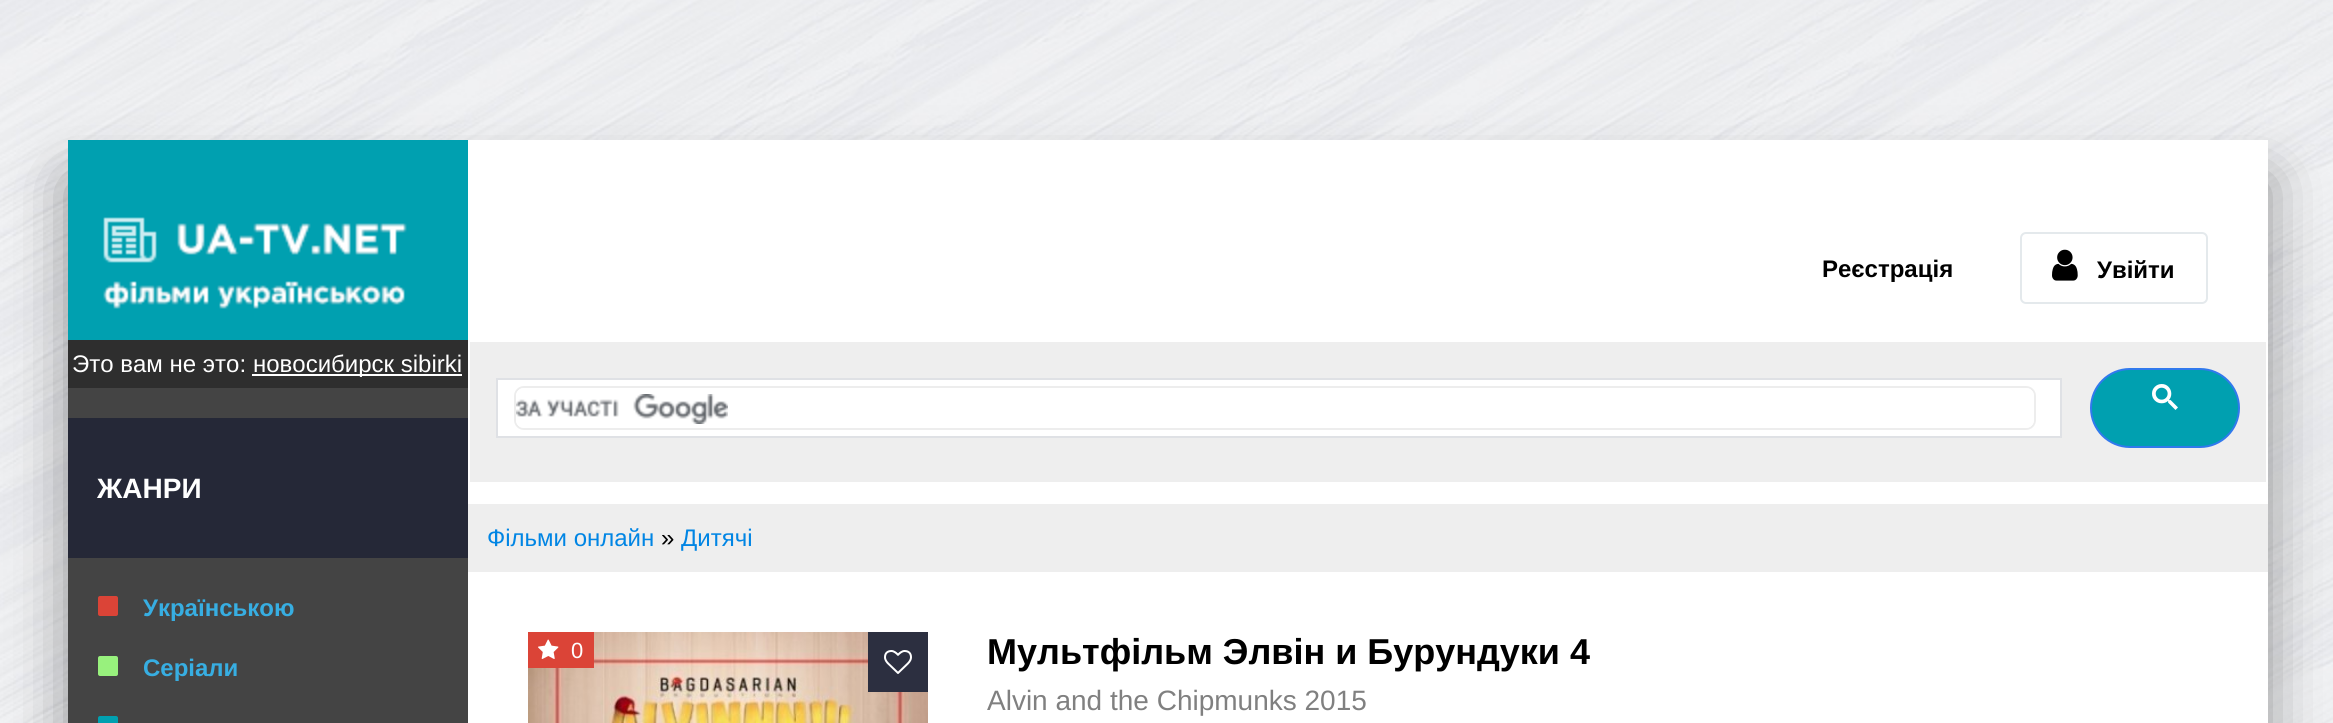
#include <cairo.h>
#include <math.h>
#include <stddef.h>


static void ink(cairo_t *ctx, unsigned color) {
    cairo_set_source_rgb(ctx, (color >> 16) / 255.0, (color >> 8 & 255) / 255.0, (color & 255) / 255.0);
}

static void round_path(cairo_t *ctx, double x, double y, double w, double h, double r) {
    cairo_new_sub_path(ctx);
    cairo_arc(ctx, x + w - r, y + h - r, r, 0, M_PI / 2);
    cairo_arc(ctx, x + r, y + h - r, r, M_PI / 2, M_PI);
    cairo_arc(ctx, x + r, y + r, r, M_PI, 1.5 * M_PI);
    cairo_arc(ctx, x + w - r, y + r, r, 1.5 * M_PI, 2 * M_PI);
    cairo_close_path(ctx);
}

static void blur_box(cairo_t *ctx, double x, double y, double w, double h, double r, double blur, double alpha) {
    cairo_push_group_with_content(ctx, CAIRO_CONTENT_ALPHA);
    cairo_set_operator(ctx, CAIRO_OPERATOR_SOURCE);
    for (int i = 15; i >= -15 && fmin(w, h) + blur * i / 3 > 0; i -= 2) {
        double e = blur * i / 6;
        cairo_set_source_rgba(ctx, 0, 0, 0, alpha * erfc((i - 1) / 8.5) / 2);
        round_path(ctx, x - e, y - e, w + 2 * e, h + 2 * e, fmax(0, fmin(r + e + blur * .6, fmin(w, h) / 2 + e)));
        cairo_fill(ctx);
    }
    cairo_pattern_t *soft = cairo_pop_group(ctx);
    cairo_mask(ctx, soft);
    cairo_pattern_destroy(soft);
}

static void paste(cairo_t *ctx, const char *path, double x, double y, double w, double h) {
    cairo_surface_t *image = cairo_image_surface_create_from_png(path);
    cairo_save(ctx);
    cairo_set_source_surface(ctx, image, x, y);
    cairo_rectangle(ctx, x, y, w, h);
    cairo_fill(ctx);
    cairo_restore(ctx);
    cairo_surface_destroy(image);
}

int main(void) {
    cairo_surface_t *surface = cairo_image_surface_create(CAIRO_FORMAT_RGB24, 2333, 723);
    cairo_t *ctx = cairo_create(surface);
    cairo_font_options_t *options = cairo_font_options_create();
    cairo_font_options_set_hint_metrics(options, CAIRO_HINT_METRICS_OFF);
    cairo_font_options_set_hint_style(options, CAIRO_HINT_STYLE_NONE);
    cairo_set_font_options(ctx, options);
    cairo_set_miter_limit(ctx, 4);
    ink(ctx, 0xFFFFFF);
    cairo_paint(ctx);
    paste(ctx, "media/1.png", 0, 0, 2333, 723);
    ink(ctx, 0x000000);
    blur_box(ctx, 68, 180, 2200, 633, 0, 30, 0.4);
    ink(ctx, 0xFFFFFF);
    cairo_rectangle(ctx, 468, 140, 1800, 583);
    cairo_fill(ctx);
    ink(ctx, 0x00A0B0);
    cairo_rectangle(ctx, 68, 140, 400, 200);
    cairo_fill(ctx);
    paste(ctx, "media/2.png", 103, 217, 304, 92);
    cairo_select_font_face(ctx, "Liberation Sans", CAIRO_FONT_SLANT_NORMAL, CAIRO_FONT_WEIGHT_BOLD);
    cairo_set_font_size(ctx, 24);
    ink(ctx, 0x000000);
    cairo_move_to(ctx, 1822, 277);
    cairo_show_text(ctx, "Реєстрація");
    round_path(ctx, 2021, 233, 186, 70, 5);
    ink(ctx, 0xE4E9EC);
    cairo_stroke(ctx);
    paste(ctx, "media/3.png", 2052, 249, 26, 32);
    ink(ctx, 0x000000);
    cairo_move_to(ctx, 2097, 278);
    cairo_show_text(ctx, "Увійти");
    ink(ctx, 0x444444);
    cairo_rectangle(ctx, 68, 388, 400, 335);
    cairo_fill(ctx);
    ink(ctx, 0x2E2E2E);
    cairo_rectangle(ctx, 68, 340, 400, 48);
    cairo_fill(ctx);
    cairo_select_font_face(ctx, "Liberation Sans", CAIRO_FONT_SLANT_NORMAL, CAIRO_FONT_WEIGHT_NORMAL);
    ink(ctx, 0xFFFFFF);
    cairo_move_to(ctx, 72, 372);
    cairo_show_text(ctx, "Это вам не это:");
    cairo_rectangle(ctx, 252, 374, 210, 2);
    cairo_fill(ctx);
    cairo_move_to(ctx, 253, 372);
    cairo_show_text(ctx, "новосибирск sibirki");
    ink(ctx, 0x252837);
    cairo_rectangle(ctx, 68, 418, 400, 140);
    cairo_fill(ctx);
    cairo_select_font_face(ctx, "Liberation Sans", CAIRO_FONT_SLANT_NORMAL, CAIRO_FONT_WEIGHT_BOLD);
    cairo_set_font_size(ctx, 28);
    ink(ctx, 0xFFFFFF);
    cairo_move_to(ctx, 97, 498);
    cairo_show_text(ctx, "ЖАНРИ");
    ink(ctx, 0xDB4437);
    round_path(ctx, 98, 596, 20, 20, 2);
    cairo_fill(ctx);
    cairo_set_font_size(ctx, 24);
    ink(ctx, 0x37AEE2);
    cairo_move_to(ctx, 143, 616);
    cairo_show_text(ctx, "Українською");
    ink(ctx, 0x98F17D);
    round_path(ctx, 98, 656, 20, 20, 2);
    cairo_fill(ctx);
    ink(ctx, 0x37AEE2);
    cairo_move_to(ctx, 143, 676);
    cairo_show_text(ctx, "Серіали");
    ink(ctx, 0x00A0B0);
    round_path(ctx, 98, 716, 20, 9, 2);
    cairo_fill(ctx);
    ink(ctx, 0xEEEEEE);
    cairo_rectangle(ctx, 470, 342, 1796, 140);
    cairo_fill(ctx);
    ink(ctx, 0xFFFFFF);
    cairo_rectangle(ctx, 497, 379, 1564, 58);
    cairo_fill_preserve(ctx);
    ink(ctx, 0xDFE1E5);
    cairo_stroke(ctx);
    round_path(ctx, 515, 387, 1520, 42, 9);
    ink(ctx, 0xEDEDED);
    cairo_stroke(ctx);
    ink(ctx, 0xFFFFFF);
    round_path(ctx, 516, 388, 1518, 40, 8);
    cairo_fill(ctx);
    paste(ctx, "media/4.png", 516, 394, 212, 30);
    ink(ctx, 0x00A0B0);
    round_path(ctx, 2091, 369, 148, 78, 39);
    cairo_fill_preserve(ctx);
    ink(ctx, 0x3079ED);
    cairo_stroke(ctx);
    paste(ctx, "media/5.png", 2152, 384, 26, 26);
    ink(ctx, 0xEEEEEE);
    cairo_rectangle(ctx, 468, 504, 1800, 68);
    cairo_fill(ctx);
    cairo_select_font_face(ctx, "Liberation Sans", CAIRO_FONT_SLANT_NORMAL, CAIRO_FONT_WEIGHT_NORMAL);
    ink(ctx, 0x0085E4);
    cairo_move_to(ctx, 487, 546);
    cairo_show_text(ctx, "Фільми онлайн");
    ink(ctx, 0x000000);
    cairo_move_to(ctx, 661, 546);
    cairo_show_text(ctx, "»");
    ink(ctx, 0x0085E4);
    cairo_move_to(ctx, 681, 546);
    cairo_show_text(ctx, "Дитячі");
    paste(ctx, "media/6.png", 528, 632, 400, 91);
    ink(ctx, 0xDB4437);
    cairo_rectangle(ctx, 528, 632, 66, 36);
    cairo_fill(ctx);
    paste(ctx, "media/7.png", 538, 639, 21, 20);
    cairo_set_font_size(ctx, 22);
    ink(ctx, 0xFFFFFF);
    cairo_move_to(ctx, 571, 658);
    cairo_show_text(ctx, "0");
    ink(ctx, 0x2C2F40);
    cairo_rectangle(ctx, 868, 632, 60, 60);
    cairo_fill(ctx);
    paste(ctx, "media/8.png", 884, 650, 28, 24);
    cairo_select_font_face(ctx, "Liberation Sans", CAIRO_FONT_SLANT_NORMAL, CAIRO_FONT_WEIGHT_BOLD);
    cairo_set_font_size(ctx, 36);
    ink(ctx, 0x000000);
    cairo_move_to(ctx, 987, 664);
    cairo_show_text(ctx, "Мультфільм Элвін и Бурундуки 4");
    cairo_select_font_face(ctx, "Liberation Sans", CAIRO_FONT_SLANT_NORMAL, CAIRO_FONT_WEIGHT_NORMAL);
    cairo_set_font_size(ctx, 28);
    ink(ctx, 0x808080);
    cairo_move_to(ctx, 987, 710);
    cairo_show_text(ctx, "Alvin and the Chipmunks 2015");
    cairo_surface_write_to_png(surface, "image.png");
    cairo_font_options_destroy(options);
    cairo_destroy(ctx);
    cairo_surface_destroy(surface);
    return 0;
}
